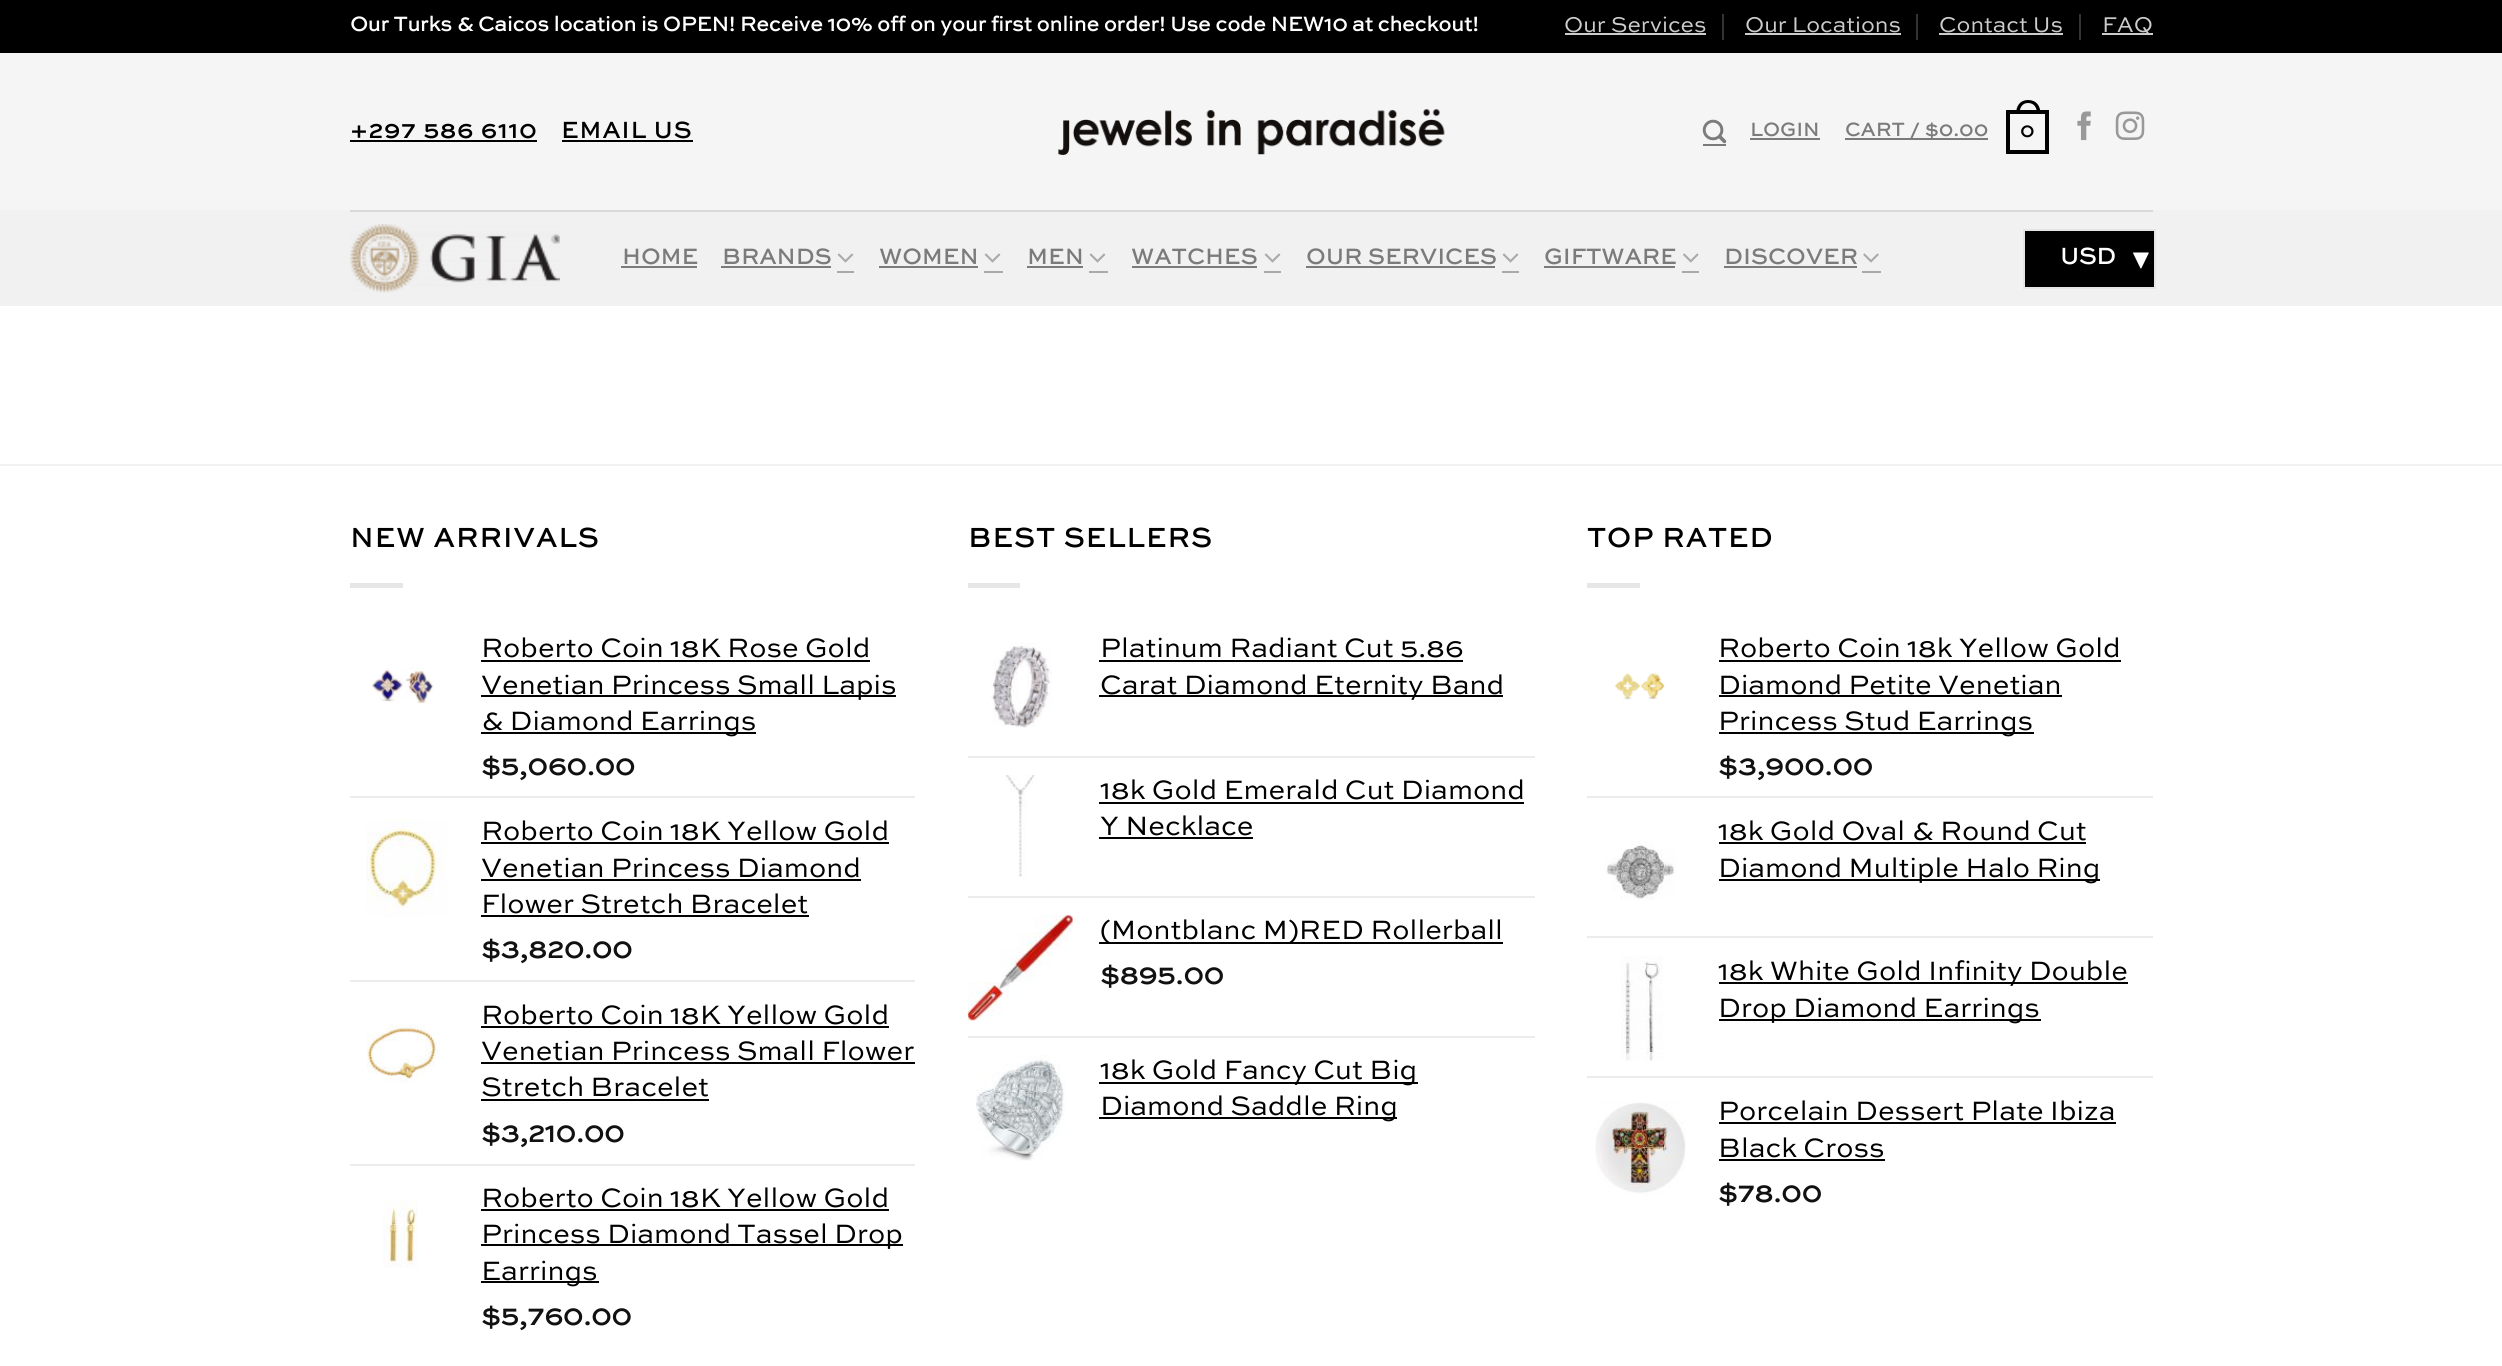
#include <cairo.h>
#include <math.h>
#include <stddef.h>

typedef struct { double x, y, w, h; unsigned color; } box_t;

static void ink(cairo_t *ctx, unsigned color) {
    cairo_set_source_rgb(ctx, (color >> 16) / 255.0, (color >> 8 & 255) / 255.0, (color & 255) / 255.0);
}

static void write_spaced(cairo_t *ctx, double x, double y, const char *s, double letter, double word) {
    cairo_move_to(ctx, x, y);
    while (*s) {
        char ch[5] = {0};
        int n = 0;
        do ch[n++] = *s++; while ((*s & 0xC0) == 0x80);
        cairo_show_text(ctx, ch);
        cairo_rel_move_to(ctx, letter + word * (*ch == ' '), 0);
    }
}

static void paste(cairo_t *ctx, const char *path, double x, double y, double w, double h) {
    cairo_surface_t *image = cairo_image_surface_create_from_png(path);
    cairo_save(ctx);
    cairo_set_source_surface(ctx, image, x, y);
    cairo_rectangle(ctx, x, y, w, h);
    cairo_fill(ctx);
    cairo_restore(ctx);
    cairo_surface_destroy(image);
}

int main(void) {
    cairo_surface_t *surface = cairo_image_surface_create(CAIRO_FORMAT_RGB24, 2502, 1366);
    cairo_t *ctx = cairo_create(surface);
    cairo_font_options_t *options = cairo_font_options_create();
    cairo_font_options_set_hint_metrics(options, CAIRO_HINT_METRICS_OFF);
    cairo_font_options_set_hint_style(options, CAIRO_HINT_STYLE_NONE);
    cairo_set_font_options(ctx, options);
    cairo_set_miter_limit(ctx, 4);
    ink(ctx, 0xFFFFFF);
    cairo_paint(ctx);
    ink(ctx, 0x000000);
    cairo_rectangle(ctx, 0, 0, 2502, 53);
    cairo_fill(ctx);
    cairo_select_font_face(ctx, "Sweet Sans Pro", CAIRO_FONT_SLANT_NORMAL, CAIRO_FONT_WEIGHT_BOLD);
    cairo_set_font_size(ctx, 21);
    ink(ctx, 0xFFFFFF);
    cairo_move_to(ctx, 350, 31);
    cairo_show_text(ctx, "Our Turks & Caicos location is OPEN! Receive 10% off on your first online order! Use code NEW10 at checkout!");
    cairo_select_font_face(ctx, "Sweet Sans Pro", CAIRO_FONT_SLANT_NORMAL, CAIRO_FONT_WEIGHT_NORMAL);
    cairo_set_font_size(ctx, 22.5);
    ink(ctx, 0xCCCCCC);
    cairo_move_to(ctx, 1564, 32);
    cairo_show_text(ctx, "Our Services");
    cairo_rectangle(ctx, 1565, 33, 141, 2);
    cairo_fill(ctx);
    ink(ctx, 0x333333);
    cairo_rectangle(ctx, 1722, 14, 2, 26);
    cairo_fill(ctx);
    ink(ctx, 0xCCCCCC);
    cairo_move_to(ctx, 1745, 32);
    cairo_show_text(ctx, "Our Locations");
    cairo_rectangle(ctx, 1745, 33, 156, 2);
    cairo_fill(ctx);
    ink(ctx, 0x333333);
    cairo_rectangle(ctx, 1916, 14, 2, 26);
    cairo_fill(ctx);
    ink(ctx, 0xCCCCCC);
    cairo_move_to(ctx, 1939, 32);
    cairo_show_text(ctx, "Contact Us");
    {
        static const box_t items[] = {
            {1939, 33, 124, 2, 0xCCCCCC},
            {2079, 14, 2, 26, 0x333333},
            {2102, 33, 51, 2, 0xCCCCCC},
        };
        for (size_t i = 0; i < sizeof items / sizeof *items; i++) {
            ink(ctx, items[i].color);
            cairo_rectangle(ctx, items[i].x, items[i].y, items[i].w, items[i].h);
            cairo_fill(ctx);
        }
    }
    cairo_move_to(ctx, 2102, 32);
    cairo_show_text(ctx, "FAQ");
    ink(ctx, 0xF5F5F5);
    cairo_rectangle(ctx, 0, 53, 2502, 157);
    cairo_fill(ctx);
    cairo_select_font_face(ctx, "Sweet Sans Pro", CAIRO_FONT_SLANT_NORMAL, CAIRO_FONT_WEIGHT_BOLD);
    cairo_set_font_size(ctx, 23.75);
    ink(ctx, 0x000000);
    write_spaced(ctx, 350, 138, "+297 586 6110", 1.25, 0);
    cairo_rectangle(ctx, 350, 140, 187, 2);
    cairo_fill(ctx);
    write_spaced(ctx, 561, 138, "EMAIL US", 1.25, 0);
    cairo_rectangle(ctx, 562, 140, 131, 2);
    cairo_fill(ctx);
    paste(ctx, "media/1.png", 1058, 109, 387, 47);
    paste(ctx, "media/2.png", 1702, 119, 25, 25);
    ink(ctx, 0x7B7B7B);
    cairo_rectangle(ctx, 1703, 144, 23, 2);
    cairo_fill(ctx);
    cairo_set_font_size(ctx, 19.5);
    write_spaced(ctx, 1750, 136, "LOGIN", 0.4, 0);
    cairo_rectangle(ctx, 1750, 138, 70, 2);
    cairo_fill(ctx);
    cairo_rectangle(ctx, 1845, 138, 143, 2);
    cairo_fill(ctx);
    write_spaced(ctx, 1845, 136, "CART / $0.00", 0.4, 0);
    cairo_rectangle(ctx, 2008, 112, 39, 40);
    ink(ctx, 0x000000);
    cairo_set_line_width(ctx, 4);
    cairo_stroke(ctx);
    cairo_set_fill_rule(ctx, CAIRO_FILL_RULE_EVEN_ODD);
    cairo_new_path(ctx);
    cairo_move_to(ctx, 2028, 100);
    cairo_curve_to(ctx, 2036.5, 100, 2040.5, 106, 2040.5, 114);
    cairo_line_to(ctx, 2016, 114);
    cairo_curve_to(ctx, 2016, 106, 2020, 100, 2028, 100);
    cairo_close_path(ctx);
    cairo_move_to(ctx, 2028, 103);
    cairo_curve_to(ctx, 2034.5, 103, 2037, 108, 2037, 114);
    cairo_line_to(ctx, 2019.5, 114);
    cairo_curve_to(ctx, 2019.5, 108, 2022, 103, 2028, 103);
    cairo_close_path(ctx);
    cairo_fill(ctx);
    write_spaced(ctx, 2020, 137, "0", 0.4, 0);
    paste(ctx, "media/3.png", 2077, 111, 14, 30);
    paste(ctx, "media/4.png", 2115, 111, 30, 29);
    ink(ctx, 0xF1F1F1);
    cairo_rectangle(ctx, 0, 210, 2502, 96);
    cairo_fill(ctx);
    ink(ctx, 0xD9D9D9);
    cairo_rectangle(ctx, 350, 210, 1803, 2);
    cairo_fill(ctx);
    paste(ctx, "media/5.png", 350, 224, 210, 69);
    cairo_set_font_size(ctx, 22.5);
    ink(ctx, 0x7B7B7B);
    write_spaced(ctx, 622, 264, "HOME", 0.5, 0);
    cairo_rectangle(ctx, 621, 266, 76, 2);
    cairo_fill(ctx);
    write_spaced(ctx, 722, 264, "BRANDS", 0.5, 0);
    cairo_rectangle(ctx, 721, 266, 110, 2);
    cairo_fill(ctx);
    paste(ctx, "media/6.png", 837, 253, 17, 10);
    ink(ctx, 0xAAAAAA);
    cairo_rectangle(ctx, 837, 271, 17, 2);
    cairo_fill(ctx);
    ink(ctx, 0x7B7B7B);
    write_spaced(ctx, 879, 264, "WOMEN", 0.5, 0);
    cairo_rectangle(ctx, 879, 266, 99, 2);
    cairo_fill(ctx);
    paste(ctx, "media/6.png", 984, 253, 17, 10);
    ink(ctx, 0xAAAAAA);
    cairo_rectangle(ctx, 984, 271, 19, 2);
    cairo_fill(ctx);
    ink(ctx, 0x7B7B7B);
    write_spaced(ctx, 1027, 264, "MEN", 0.5, 0);
    cairo_rectangle(ctx, 1027, 266, 56, 2);
    cairo_fill(ctx);
    paste(ctx, "media/6.png", 1089, 253, 17, 10);
    ink(ctx, 0xAAAAAA);
    cairo_rectangle(ctx, 1089, 271, 19, 2);
    cairo_fill(ctx);
    ink(ctx, 0x7B7B7B);
    write_spaced(ctx, 1131, 264, "WATCHES", 0.5, 0);
    cairo_rectangle(ctx, 1132, 266, 125, 2);
    cairo_fill(ctx);
    paste(ctx, "media/6.png", 1264, 253, 17, 10);
    ink(ctx, 0xAAAAAA);
    cairo_rectangle(ctx, 1264, 271, 17, 2);
    cairo_fill(ctx);
    ink(ctx, 0x7B7B7B);
    write_spaced(ctx, 1306, 264, "OUR SERVICES", 0.5, 0);
    cairo_rectangle(ctx, 1306, 266, 189, 2);
    cairo_fill(ctx);
    paste(ctx, "media/6.png", 1502, 253, 17, 10);
    ink(ctx, 0xAAAAAA);
    cairo_rectangle(ctx, 1502, 271, 17, 2);
    cairo_fill(ctx);
    ink(ctx, 0x7B7B7B);
    write_spaced(ctx, 1544, 264, "GIFTWARE", 0.5, 0);
    cairo_rectangle(ctx, 1544, 266, 131, 2);
    cairo_fill(ctx);
    paste(ctx, "media/7.png", 1683, 253, 16, 10);
    ink(ctx, 0xAAAAAA);
    cairo_rectangle(ctx, 1682, 271, 17, 2);
    cairo_fill(ctx);
    ink(ctx, 0x7B7B7B);
    write_spaced(ctx, 1724, 264, "DISCOVER", 0.5, 0);
    cairo_rectangle(ctx, 1724, 266, 133, 2);
    cairo_fill(ctx);
    paste(ctx, "media/8.png", 1863, 253, 16, 10);
    ink(ctx, 0xAAAAAA);
    cairo_rectangle(ctx, 1862, 271, 19, 2);
    cairo_fill(ctx);
    ink(ctx, 0x000000);
    cairo_rectangle(ctx, 2024, 230, 131, 58);
    cairo_fill_preserve(ctx);
    ink(ctx, 0xE5E5E5);
    cairo_set_line_width(ctx, 2);
    cairo_stroke(ctx);
    cairo_set_font_size(ctx, 23.75);
    ink(ctx, 0xFFFFFF);
    cairo_move_to(ctx, 2060, 264);
    cairo_show_text(ctx, "USD");
    cairo_set_font_size(ctx, 26);
    cairo_move_to(ctx, 2132, 266);
    cairo_show_text(ctx, "▼");
    ink(ctx, 0xF2F2F2);
    cairo_rectangle(ctx, 0, 464, 2502, 2);
    cairo_fill(ctx);
    cairo_set_font_size(ctx, 28);
    ink(ctx, 0x000000);
    write_spaced(ctx, 350, 547, "NEW ARRIVALS", 1.4, 0);
    ink(ctx, 0xE6E6E6);
    cairo_rectangle(ctx, 350, 583, 53, 5);
    cairo_fill(ctx);
    cairo_select_font_face(ctx, "Sweet Sans Pro", CAIRO_FONT_SLANT_NORMAL, CAIRO_FONT_WEIGHT_NORMAL);
    ink(ctx, 0x000000);
    cairo_move_to(ctx, 481, 657);
    cairo_show_text(ctx, "Roberto Coin 18K Rose Gold");
    cairo_rectangle(ctx, 481, 660, 389, 2);
    cairo_fill(ctx);
    paste(ctx, "media/9.png", 372, 667, 62, 37);
    cairo_rectangle(ctx, 481, 695, 415, 2);
    cairo_fill(ctx);
    cairo_move_to(ctx, 481, 694);
    cairo_show_text(ctx, "Venetian Princess Small Lapis");
    cairo_rectangle(ctx, 481, 732, 275, 2);
    cairo_fill(ctx);
    cairo_move_to(ctx, 481, 730);
    cairo_show_text(ctx, "& Diamond Earrings");
    cairo_select_font_face(ctx, "Sweet Sans Pro", CAIRO_FONT_SLANT_NORMAL, CAIRO_FONT_WEIGHT_BOLD);
    ink(ctx, 0x111111);
    cairo_move_to(ctx, 481, 775);
    cairo_show_text(ctx, "$5,060.00");
    ink(ctx, 0xECECEC);
    cairo_rectangle(ctx, 350, 796, 565, 2);
    cairo_fill(ctx);
    paste(ctx, "media/10.png", 366, 819, 81, 98);
    cairo_select_font_face(ctx, "Sweet Sans Pro", CAIRO_FONT_SLANT_NORMAL, CAIRO_FONT_WEIGHT_NORMAL);
    ink(ctx, 0x000000);
    cairo_move_to(ctx, 481, 840);
    cairo_show_text(ctx, "Roberto Coin 18K Yellow Gold");
    cairo_rectangle(ctx, 481, 842, 408, 2);
    cairo_fill(ctx);
    cairo_move_to(ctx, 481, 877);
    cairo_show_text(ctx, "Venetian Princess Diamond");
    cairo_rectangle(ctx, 481, 879, 380, 2);
    cairo_fill(ctx);
    cairo_move_to(ctx, 481, 913);
    cairo_show_text(ctx, "Flower Stretch Bracelet");
    cairo_rectangle(ctx, 481, 915, 328, 2);
    cairo_fill(ctx);
    cairo_select_font_face(ctx, "Sweet Sans Pro", CAIRO_FONT_SLANT_NORMAL, CAIRO_FONT_WEIGHT_BOLD);
    ink(ctx, 0x111111);
    cairo_move_to(ctx, 481, 958);
    cairo_show_text(ctx, "$3,820.00");
    ink(ctx, 0xECECEC);
    cairo_rectangle(ctx, 350, 980, 565, 2);
    cairo_fill(ctx);
    cairo_select_font_face(ctx, "Sweet Sans Pro", CAIRO_FONT_SLANT_NORMAL, CAIRO_FONT_WEIGHT_NORMAL);
    ink(ctx, 0x000000);
    cairo_move_to(ctx, 481, 1024);
    cairo_show_text(ctx, "Roberto Coin 18K Yellow Gold");
    cairo_rectangle(ctx, 481, 1026, 408, 2);
    cairo_fill(ctx);
    paste(ctx, "media/11.png", 367, 1024, 73, 59);
    cairo_move_to(ctx, 481, 1060);
    cairo_show_text(ctx, "Venetian Princess Small Flower");
    cairo_rectangle(ctx, 481, 1062, 434, 2);
    cairo_fill(ctx);
    cairo_move_to(ctx, 481, 1096);
    cairo_show_text(ctx, "Stretch Bracelet");
    cairo_rectangle(ctx, 481, 1099, 228, 2);
    cairo_fill(ctx);
    cairo_select_font_face(ctx, "Sweet Sans Pro", CAIRO_FONT_SLANT_NORMAL, CAIRO_FONT_WEIGHT_BOLD);
    ink(ctx, 0x111111);
    cairo_move_to(ctx, 481, 1142);
    cairo_show_text(ctx, "$3,210.00");
    ink(ctx, 0xECECEC);
    cairo_rectangle(ctx, 350, 1164, 565, 2);
    cairo_fill(ctx);
    cairo_select_font_face(ctx, "Sweet Sans Pro", CAIRO_FONT_SLANT_NORMAL, CAIRO_FONT_WEIGHT_NORMAL);
    ink(ctx, 0x000000);
    cairo_move_to(ctx, 481, 1207);
    cairo_show_text(ctx, "Roberto Coin 18K Yellow Gold");
    cairo_rectangle(ctx, 481, 1209, 408, 2);
    cairo_fill(ctx);
    paste(ctx, "media/12.png", 383, 1200, 35, 68);
    cairo_rectangle(ctx, 481, 1244, 422, 2);
    cairo_fill(ctx);
    cairo_move_to(ctx, 481, 1243);
    cairo_show_text(ctx, "Princess Diamond Tassel Drop");
    cairo_rectangle(ctx, 481, 1281, 118, 2);
    cairo_fill(ctx);
    cairo_move_to(ctx, 481, 1280);
    cairo_show_text(ctx, "Earrings");
    cairo_select_font_face(ctx, "Sweet Sans Pro", CAIRO_FONT_SLANT_NORMAL, CAIRO_FONT_WEIGHT_BOLD);
    ink(ctx, 0x111111);
    cairo_move_to(ctx, 481, 1325);
    cairo_show_text(ctx, "$5,760.00");
    ink(ctx, 0x000000);
    write_spaced(ctx, 968, 547, "BEST SELLERS", 1.4, 0);
    ink(ctx, 0xE6E6E6);
    cairo_rectangle(ctx, 968, 583, 52, 5);
    cairo_fill(ctx);
    paste(ctx, "media/13.png", 991, 642, 61, 86);
    cairo_select_font_face(ctx, "Sweet Sans Pro", CAIRO_FONT_SLANT_NORMAL, CAIRO_FONT_WEIGHT_NORMAL);
    ink(ctx, 0x000000);
    cairo_move_to(ctx, 1100, 657);
    cairo_show_text(ctx, "Platinum Radiant Cut 5.86");
    cairo_rectangle(ctx, 1099, 660, 364, 2);
    cairo_fill(ctx);
    cairo_rectangle(ctx, 1099, 695, 404, 2);
    cairo_fill(ctx);
    cairo_move_to(ctx, 1100, 694);
    cairo_show_text(ctx, "Carat Diamond Eternity Band");
    ink(ctx, 0xECECEC);
    cairo_rectangle(ctx, 968, 756, 567, 2);
    cairo_fill(ctx);
    paste(ctx, "media/14.png", 1005, 775, 30, 102);
    ink(ctx, 0x000000);
    cairo_move_to(ctx, 1100, 799);
    cairo_show_text(ctx, "18k Gold Emerald Cut Diamond");
    cairo_rectangle(ctx, 1099, 802, 425, 2);
    cairo_fill(ctx);
    cairo_move_to(ctx, 1100, 835);
    cairo_show_text(ctx, "Y Necklace");
    cairo_rectangle(ctx, 1099, 837, 154, 2);
    cairo_fill(ctx);
    ink(ctx, 0xECECEC);
    cairo_rectangle(ctx, 968, 896, 567, 2);
    cairo_fill(ctx);
    paste(ctx, "media/15.png", 967, 915, 106, 106);
    ink(ctx, 0x000000);
    cairo_rectangle(ctx, 1099, 942, 404, 2);
    cairo_fill(ctx);
    cairo_move_to(ctx, 1100, 939);
    cairo_show_text(ctx, "(Montblanc M)RED Rollerball");
    cairo_select_font_face(ctx, "Sweet Sans Pro", CAIRO_FONT_SLANT_NORMAL, CAIRO_FONT_WEIGHT_BOLD);
    ink(ctx, 0x111111);
    cairo_move_to(ctx, 1100, 984);
    cairo_show_text(ctx, "$895.00");
    ink(ctx, 0xECECEC);
    cairo_rectangle(ctx, 968, 1036, 567, 2);
    cairo_fill(ctx);
    paste(ctx, "media/16.png", 976, 1055, 89, 106);
    ink(ctx, 0x000000);
    cairo_rectangle(ctx, 1099, 1082, 319, 2);
    cairo_fill(ctx);
    cairo_select_font_face(ctx, "Sweet Sans Pro", CAIRO_FONT_SLANT_NORMAL, CAIRO_FONT_WEIGHT_NORMAL);
    cairo_move_to(ctx, 1100, 1079);
    cairo_show_text(ctx, "18k Gold Fancy Cut Big");
    cairo_rectangle(ctx, 1099, 1117, 298, 2);
    cairo_fill(ctx);
    cairo_move_to(ctx, 1100, 1115);
    cairo_show_text(ctx, "Diamond Saddle Ring");
    cairo_select_font_face(ctx, "Sweet Sans Pro", CAIRO_FONT_SLANT_NORMAL, CAIRO_FONT_WEIGHT_BOLD);
    write_spaced(ctx, 1587, 547, "TOP RATED", 1.4, 0);
    ink(ctx, 0xE6E6E6);
    cairo_rectangle(ctx, 1587, 583, 53, 5);
    cairo_fill(ctx);
    cairo_select_font_face(ctx, "Sweet Sans Pro", CAIRO_FONT_SLANT_NORMAL, CAIRO_FONT_WEIGHT_NORMAL);
    ink(ctx, 0x000000);
    cairo_move_to(ctx, 1718, 657);
    cairo_show_text(ctx, "Roberto Coin 18k Yellow Gold");
    cairo_rectangle(ctx, 1719, 660, 402, 2);
    cairo_fill(ctx);
    paste(ctx, "media/17.png", 1614, 672, 51, 28);
    cairo_move_to(ctx, 1718, 694);
    cairo_show_text(ctx, "Diamond Petite Venetian");
    cairo_rectangle(ctx, 1719, 695, 343, 2);
    cairo_fill(ctx);
    cairo_rectangle(ctx, 1719, 732, 315, 2);
    cairo_fill(ctx);
    cairo_move_to(ctx, 1718, 730);
    cairo_show_text(ctx, "Princess Stud Earrings");
    cairo_select_font_face(ctx, "Sweet Sans Pro", CAIRO_FONT_SLANT_NORMAL, CAIRO_FONT_WEIGHT_BOLD);
    ink(ctx, 0x111111);
    cairo_move_to(ctx, 1718, 775);
    cairo_show_text(ctx, "$3,900.00");
    ink(ctx, 0xECECEC);
    cairo_rectangle(ctx, 1587, 796, 566, 2);
    cairo_fill(ctx);
    cairo_select_font_face(ctx, "Sweet Sans Pro", CAIRO_FONT_SLANT_NORMAL, CAIRO_FONT_WEIGHT_NORMAL);
    ink(ctx, 0x000000);
    cairo_move_to(ctx, 1718, 840);
    cairo_show_text(ctx, "18k Gold Oval & Round Cut");
    cairo_rectangle(ctx, 1719, 842, 367, 2);
    cairo_fill(ctx);
    paste(ctx, "media/18.png", 1604, 841, 72, 59);
    cairo_rectangle(ctx, 1719, 879, 381, 2);
    cairo_fill(ctx);
    cairo_move_to(ctx, 1718, 877);
    cairo_show_text(ctx, "Diamond Multiple Halo Ring");
    ink(ctx, 0xECECEC);
    cairo_rectangle(ctx, 1587, 936, 566, 2);
    cairo_fill(ctx);
    paste(ctx, "media/19.png", 1621, 956, 42, 105);
    ink(ctx, 0x000000);
    cairo_rectangle(ctx, 1719, 982, 409, 2);
    cairo_fill(ctx);
    cairo_move_to(ctx, 1718, 980);
    cairo_show_text(ctx, "18k White Gold Infinity Double");
    cairo_rectangle(ctx, 1719, 1019, 322, 2);
    cairo_fill(ctx);
    cairo_move_to(ctx, 1718, 1017);
    cairo_show_text(ctx, "Drop Diamond Earrings");
    ink(ctx, 0xECECEC);
    cairo_rectangle(ctx, 1587, 1076, 566, 2);
    cairo_fill(ctx);
    paste(ctx, "media/20.png", 1595, 1102, 91, 93);
    ink(ctx, 0x000000);
    cairo_move_to(ctx, 1718, 1120);
    cairo_show_text(ctx, "Porcelain Dessert Plate Ibiza");
    cairo_rectangle(ctx, 1719, 1122, 397, 2);
    cairo_fill(ctx);
    cairo_move_to(ctx, 1718, 1157);
    cairo_show_text(ctx, "Black Cross");
    cairo_rectangle(ctx, 1719, 1159, 166, 2);
    cairo_fill(ctx);
    cairo_select_font_face(ctx, "Sweet Sans Pro", CAIRO_FONT_SLANT_NORMAL, CAIRO_FONT_WEIGHT_BOLD);
    ink(ctx, 0x111111);
    cairo_move_to(ctx, 1718, 1202);
    cairo_show_text(ctx, "$78.00");
    cairo_surface_write_to_png(surface, "image.png");
    cairo_font_options_destroy(options);
    cairo_destroy(ctx);
    cairo_surface_destroy(surface);
    return 0;
}
